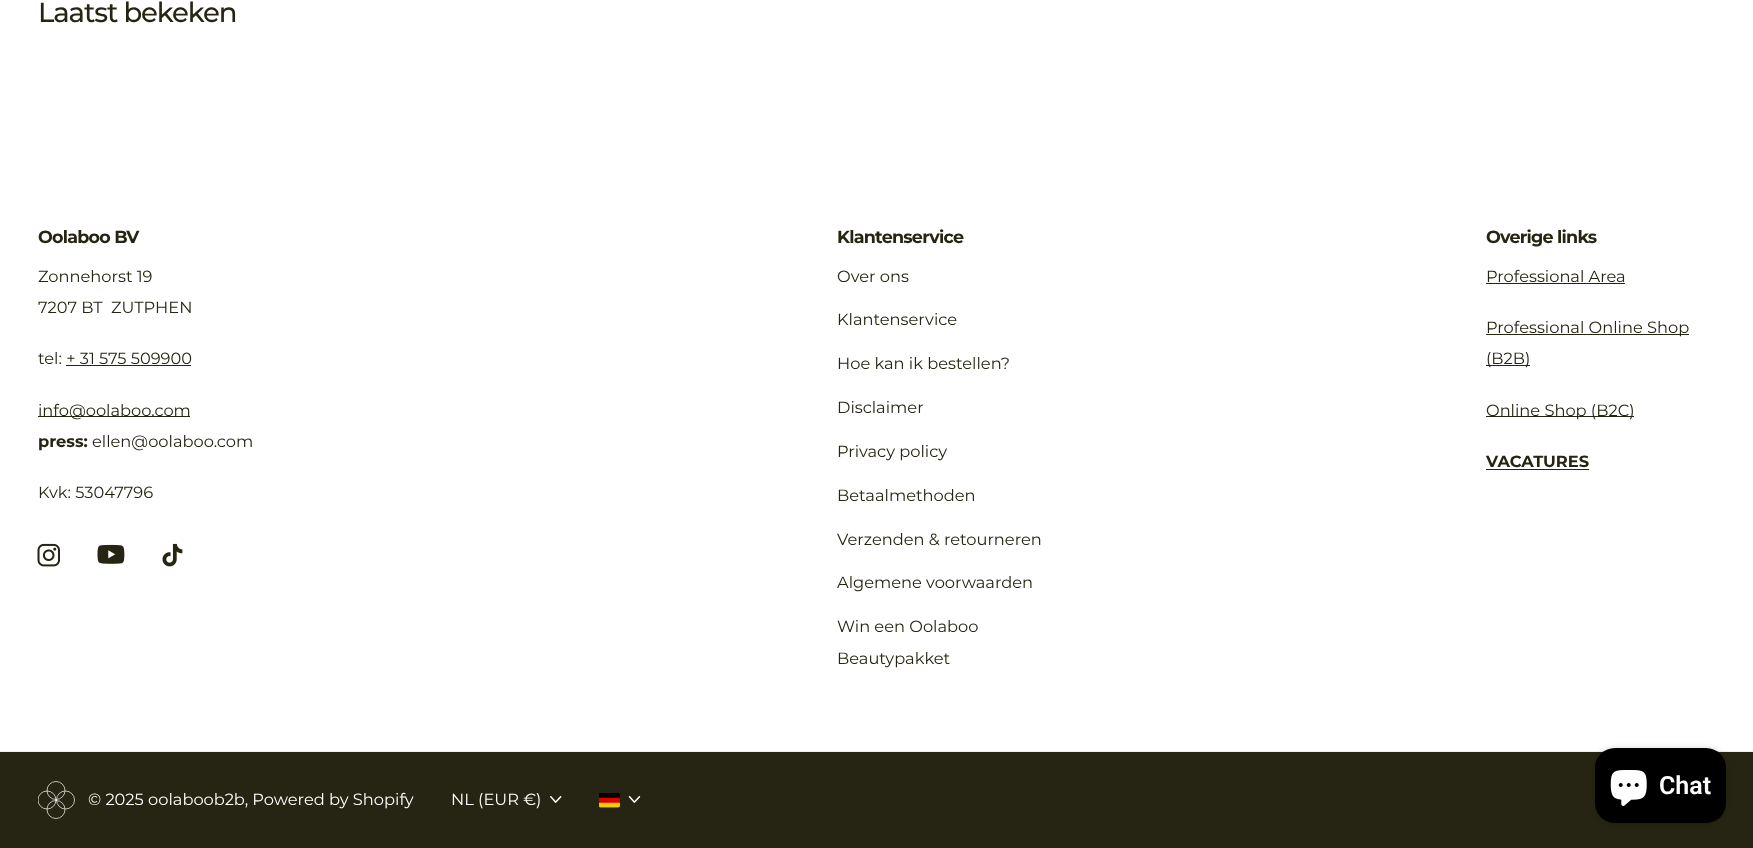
<?xml version="1.0" encoding="UTF-8"?>
<svg xmlns="http://www.w3.org/2000/svg" width="1753" height="848">
    <defs>
        <clipPath id="clip1"><rect x="38" y="781" width="37" height="38"/></clipPath>
        <filter id="blur1" x="-50%" y="-200%" width="200%" height="500%"><feGaussianBlur stdDeviation="3"/></filter>
    </defs>
    <rect width="100%" height="100%" fill="#FFFFFF"/>
    <text x="38" y="22" font-family="Montserrat" font-size="27.5" font-weight="500" letter-spacing="-1.1" fill="#262412">Laatst bekeken</text>
    <text x="38" y="243" font-family="Montserrat" font-size="17.5" font-weight="700" letter-spacing="-0.75" fill="#262412">Oolaboo BV</text>
    <text font-family="Montserrat" font-size="16.25" fill="#262412" xml:space="preserve"><tspan x="38" y="282">Zonnehorst 19</tspan><tspan x="38" y="313">7207 BT  ZUTPHEN</tspan></text>
    <text x="38" y="364" font-family="Montserrat" font-size="16.25" fill="#262412">tel: + 31 575 509900</text>
    <rect x="66" y="365" width="125" height="1" fill="#262412"/>
    <rect x="38" y="416" width="152" height="1" fill="#262412"/>
    <text x="38" y="416" font-family="Montserrat" font-size="16.25" fill="#262412">info@oolaboo.com</text>
    <text x="38" y="447" font-family="Montserrat" font-size="16.25" font-weight="700" fill="#262412">press:</text>
    <text x="92" y="447" font-family="Montserrat" font-size="16.25" fill="#262412">ellen@oolaboo.com</text>
    <text x="38" y="498" font-family="Montserrat" font-size="16.25" fill="#262412">Kvk: 53047796</text>
    <image x="37" y="543" width="23" height="24" href="img_01.png"/>
    <image x="97" y="544" width="28" height="20" href="img_02.png"/>
    <image x="162" y="543" width="21" height="24" href="img_03.png"/>
    <text x="837" y="243" font-family="Montserrat" font-size="17.5" font-weight="700" letter-spacing="-0.75" fill="#262412">Klantenservice</text>
    <text x="837" y="282" font-family="Montserrat" font-size="16.25" fill="#262412">Over ons</text>
    <text x="837" y="325" font-family="Montserrat" font-size="16.25" fill="#262412">Klantenservice</text>
    <text x="837" y="369" font-family="Montserrat" font-size="16.25" fill="#262412">Hoe kan ik bestellen?</text>
    <text x="837" y="413" font-family="Montserrat" font-size="16.25" fill="#262412">Disclaimer</text>
    <text x="837" y="457" font-family="Montserrat" font-size="16.25" fill="#262412">Privacy policy</text>
    <text x="837" y="501" font-family="Montserrat" font-size="16.25" fill="#262412">Betaalmethoden</text>
    <text x="837" y="545" font-family="Montserrat" font-size="16.25" fill="#262412">Verzenden &amp; retourneren</text>
    <text x="837" y="588" font-family="Montserrat" font-size="16.25" fill="#262412">Algemene voorwaarden</text>
    <text font-family="Montserrat" font-size="16.25" fill="#262412">
        <tspan x="837" y="632">Win een Oolaboo</tspan>
        <tspan x="837" y="664">Beautypakket</tspan>
    </text>
    <text x="1486" y="243" font-family="Montserrat" font-size="17.5" font-weight="700" letter-spacing="-0.75" fill="#262412">Overige links</text>
    <text x="1486" y="282" font-family="Montserrat" font-size="16.25" fill="#262412">Professional Area</text>
    <rect x="1486" y="283" width="139" height="1" fill="#262412"/>
    <rect x="1486" y="334" width="203" height="1" fill="#262412"/>
    <text x="1486" y="333" font-family="Montserrat" font-size="16.25" fill="#262412">Professional Online Shop</text>
    <rect x="1486" y="365" width="44" height="1" fill="#262412"/>
    <text x="1486" y="364" font-family="Montserrat" font-size="16.25" fill="#262412">(B2B)</text>
    <rect x="1486" y="416" width="148" height="1" fill="#262412"/>
    <text x="1486" y="416" font-family="Montserrat" font-size="16.25" fill="#262412">Online Shop (B2C)</text>
    <text x="1486" y="467" font-family="Montserrat" font-size="16.25" font-weight="700" fill="#262412">VACATURES</text>
    <rect x="1486" y="469" width="103" height="1" fill="#262412"/>
    <rect x="0" y="752" width="1753" height="96" fill="#262412"/>
    <rect x="0" y="751" width="1753" height="1" fill="#F3ECE6"/>
    <circle cx="56" cy="790.5" r="9" fill="none" stroke="#FFFFFF" stroke-width="0.7"/>
    <circle cx="56" cy="809.5" r="9" fill="none" stroke="#FFFFFF" stroke-width="0.7"/>
    <g clip-path="url(#clip1)">
        <circle cx="47" cy="800" r="9" fill="none" stroke="#FFFFFF" stroke-width="0.7"/>
    </g>
    <circle cx="65.5" cy="800" r="9" fill="none" stroke="#FFFFFF" stroke-width="0.7"/>
    <text x="88" y="805" font-family="Montserrat" font-size="16.25" fill="#FFFFFF">© 2025 oolaboob2b, Powered by Shopify</text>
    <text x="451" y="805" font-family="Montserrat" font-size="16.25" fill="#FFFFFF">NL (EUR €)</text>
    <image x="550" y="796" width="12" height="7" href="img_04.png"/>
    <image x="599" y="793" width="21" height="15" href="img_05.png"/>
    <image x="628" y="796" width="13" height="7" href="img_06.png"/>
    <rect x="1595" y="748" width="131" height="75" rx="20" fill="#000000" fill-opacity="0.15" filter="url(#blur1)"/>
    <rect x="1595" y="748" width="131" height="75" rx="20" fill="#000000"/>
    <image x="1610" y="770" width="37" height="36" href="img_07.png"/>
    <text x="1659" y="794" font-family="Roboto" font-size="25" font-weight="600" fill="#FFFFFF">Chat</text>
</svg>
